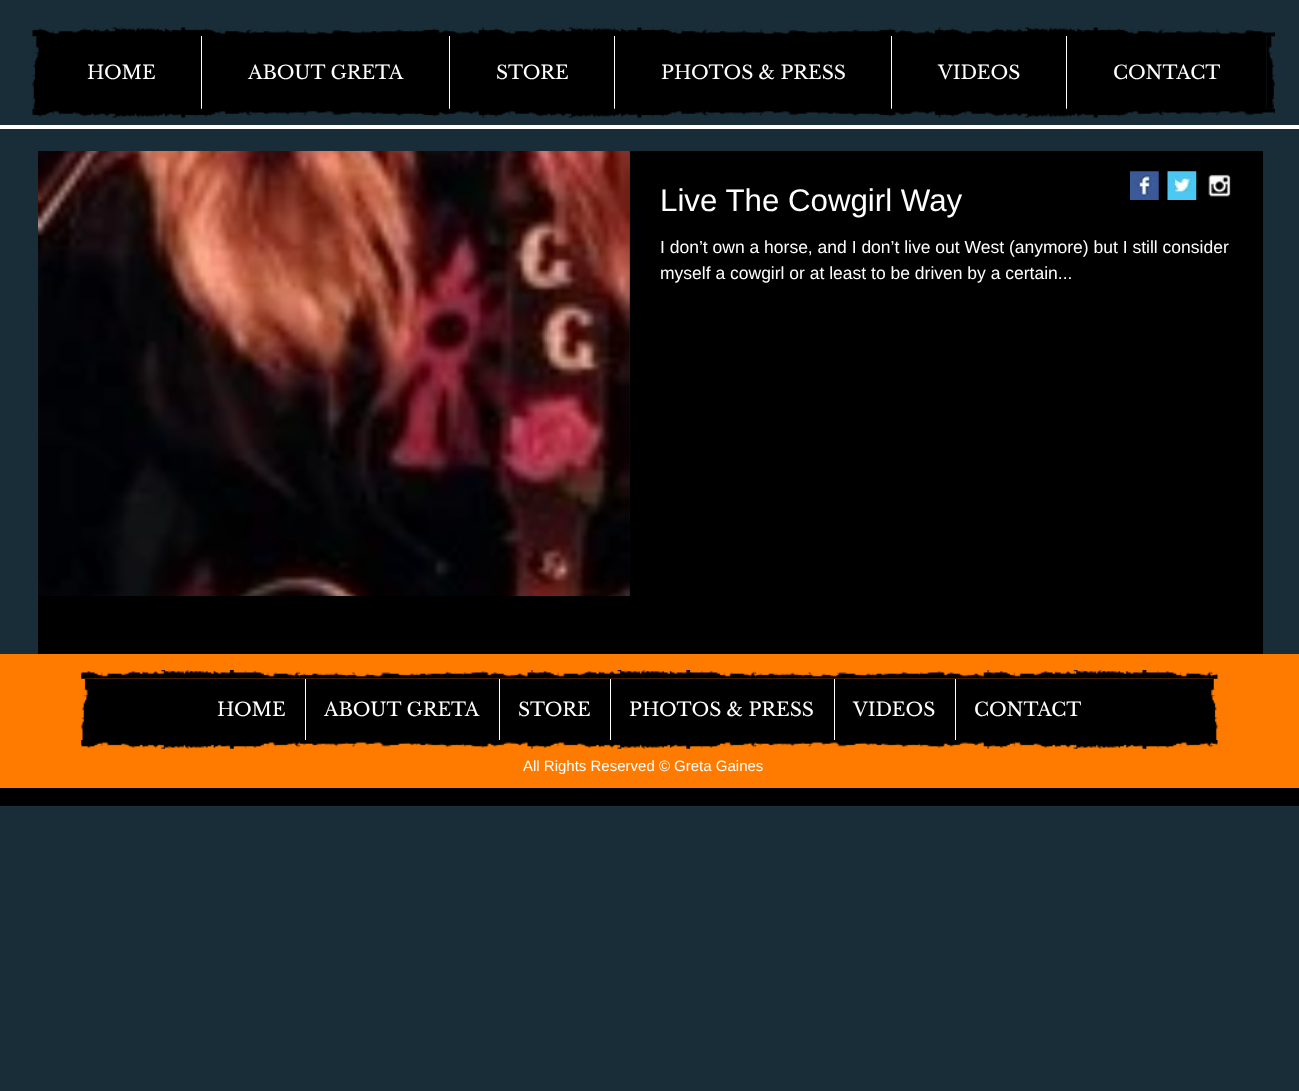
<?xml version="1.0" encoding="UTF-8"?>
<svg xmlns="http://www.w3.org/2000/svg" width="1299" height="1091">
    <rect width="100%" height="100%" fill="#192D39"/>
    <image x="32" y="27" width="1243" height="10" href="img_01.png"/>
    <image x="32" y="36" width="9" height="73" href="img_02.png"/>
    <rect x="41" y="36" width="1225" height="73" fill="#000000"/>
    <text x="87" y="79" font-family="Libre Baskerville" font-size="18.75" fill="#FFFFFF">HOME</text>
    <rect x="201" y="36" width="1" height="73" fill="#FFFFFF"/>
    <text x="248" y="79" font-family="Libre Baskerville" font-size="18.75" fill="#FFFFFF">ABOUT GRETA</text>
    <rect x="449" y="36" width="1" height="73" fill="#FFFFFF"/>
    <text x="496" y="79" font-family="Libre Baskerville" font-size="18.75" fill="#FFFFFF">STORE</text>
    <rect x="614" y="36" width="1" height="73" fill="#FFFFFF"/>
    <text x="661" y="79" font-family="Libre Baskerville" font-size="18.75" fill="#FFFFFF">PHOTOS &amp; PRESS</text>
    <rect x="891" y="36" width="1" height="73" fill="#FFFFFF"/>
    <text x="938" y="79" font-family="Libre Baskerville" font-size="18.75" fill="#FFFFFF">VIDEOS</text>
    <rect x="1066" y="36" width="1" height="73" fill="#FFFFFF"/>
    <text x="1113" y="79" font-family="Libre Baskerville" font-size="18.75" fill="#FFFFFF">CONTACT</text>
    <image x="1266" y="36" width="9" height="73" href="img_03.png"/>
    <image x="32" y="108" width="1243" height="10" href="img_04.png"/>
    <rect x="0" y="125" width="1299" height="4" fill="#FFFFFF"/>
    <rect x="38" y="151" width="1225" height="503" fill="#000000"/>
    <image x="1130" y="171" width="29" height="29" href="img_05.png"/>
    <image x="1167" y="171" width="30" height="29" href="img_06.png"/>
    <image x="1208" y="174" width="23" height="23" href="img_07.png"/>
    <image x="629" y="151" width="1" height="445" href="img_09.png"/>
    <image x="38" y="151" width="592" height="445" href="img_08.png"/>
    <text x="660" y="211" font-family="Liberation Sans" font-size="31.25" fill="#FFFFFF">Live The Cowgirl Way</text>
    <text font-family="Liberation Sans" font-size="17.5" fill="#FFFFFF">
        <tspan x="660" y="253">I don’t own a horse, and I don’t live out West (anymore) but I still consider</tspan>
        <tspan x="660" y="279">myself a cowgirl or at least to be driven by a certain...</tspan>
    </text>
    <rect x="0" y="788" width="1299" height="18" fill="#000000"/>
    <rect x="0" y="654" width="1299" height="134" fill="#FF7B00"/>
    <image x="81" y="670" width="1137" height="9" href="img_10.png"/>
    <image x="81" y="678" width="9" height="62" href="img_11.png"/>
    <rect x="90" y="679" width="1119" height="61" fill="#000000"/>
    <text x="217" y="716" font-family="Libre Baskerville" font-size="18.75" fill="#FFFFFF">HOME</text>
    <rect x="305" y="679" width="1" height="61" fill="#FFFFFF"/>
    <text x="324" y="716" font-family="Libre Baskerville" font-size="18.75" fill="#FFFFFF">ABOUT GRETA</text>
    <rect x="499" y="679" width="1" height="61" fill="#FFFFFF"/>
    <text x="518" y="716" font-family="Libre Baskerville" font-size="18.75" fill="#FFFFFF">STORE</text>
    <rect x="610" y="679" width="1" height="61" fill="#FFFFFF"/>
    <text x="629" y="716" font-family="Libre Baskerville" font-size="18.75" fill="#FFFFFF">PHOTOS &amp; PRESS</text>
    <rect x="834" y="679" width="1" height="61" fill="#FFFFFF"/>
    <text x="853" y="716" font-family="Libre Baskerville" font-size="18.75" fill="#FFFFFF">VIDEOS</text>
    <rect x="955" y="679" width="1" height="61" fill="#FFFFFF"/>
    <text x="974" y="716" font-family="Libre Baskerville" font-size="18.75" fill="#FFFFFF">CONTACT</text>
    <image x="1209" y="678" width="9" height="62" href="img_12.png"/>
    <image x="81" y="740" width="1137" height="9" href="img_13.png"/>
    <text x="523" y="771" font-family="Liberation Sans" font-size="15" fill="#FFFFFF">All Rights Reserved © Greta Gaines</text>
</svg>
